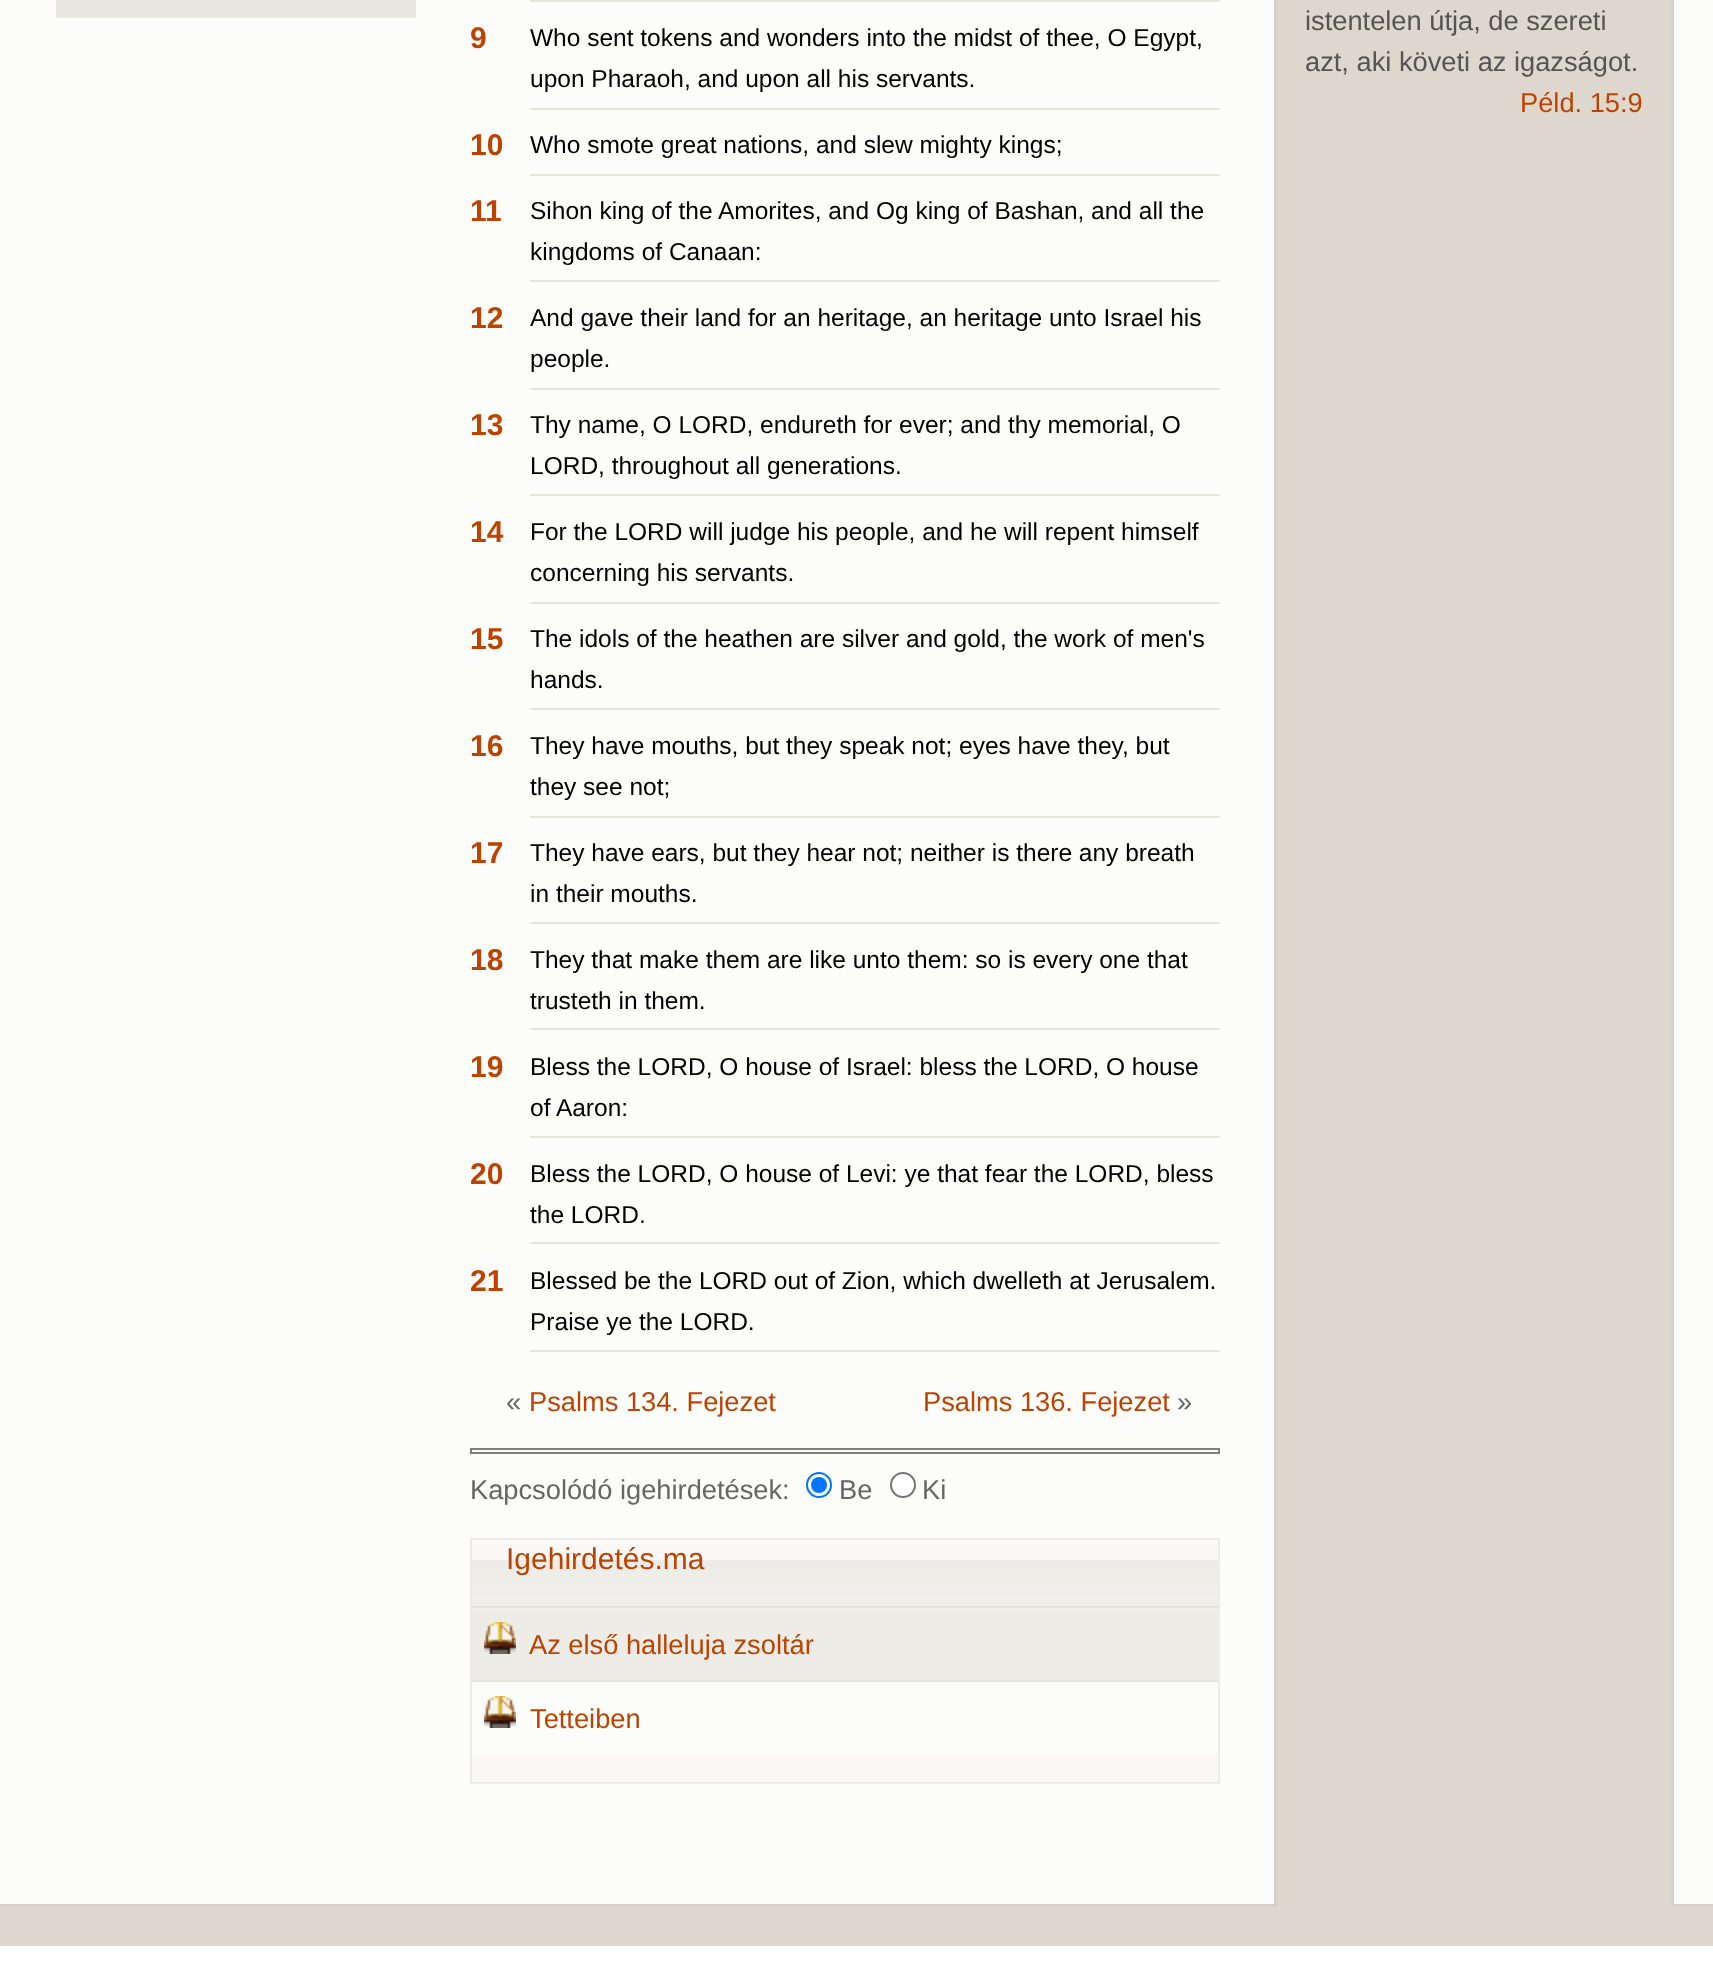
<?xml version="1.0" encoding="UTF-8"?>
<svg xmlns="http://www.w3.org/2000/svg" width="1713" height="1986">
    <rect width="100%" height="100%" fill="#FFFFFF"/>
    <rect x="0" y="0" width="1713" height="1904" fill="#FCFCFA"/>
    <image x="1274" y="0" width="400" height="1904" href="img_01.png"/>
    <rect x="0" y="1904" width="1713" height="2" fill="#D2CFC9"/>
    <image x="1277" y="1904" width="395" height="2" href="img_02.png"/>
    <rect x="56" y="0" width="360" height="18" fill="#EAE7E0"/>
    <rect x="530" y="0" width="690" height="2" fill="#E8E5DF"/>
    <text x="470" y="48" font-family="Liberation Sans" font-size="30" font-weight="700" fill="#BD4300">9</text>
    <rect x="530" y="108" width="690" height="2" fill="#E8E5DF"/>
    <text font-family="Liberation Sans" font-size="24.5" fill="#000000">
        <tspan x="530" y="46">Who sent tokens and wonders into the midst of thee, O Egypt,</tspan>
        <tspan x="530" y="87">upon Pharaoh, and upon all his servants.</tspan>
    </text>
    <text x="470" y="155" font-family="Liberation Sans" font-size="30" font-weight="700" fill="#BD4300">10</text>
    <rect x="530" y="174" width="690" height="2" fill="#E8E5DF"/>
    <text x="530" y="153" font-family="Liberation Sans" font-size="24.5" fill="#000000">Who smote great nations, and slew mighty kings;</text>
    <text x="470" y="221" font-family="Liberation Sans" font-size="30" font-weight="700" fill="#BD4300">11</text>
    <rect x="530" y="280" width="690" height="2" fill="#E8E5DF"/>
    <text font-family="Liberation Sans" font-size="24.5" fill="#000000">
        <tspan x="530" y="219">Sihon king of the Amorites, and Og king of Bashan, and all the</tspan>
        <tspan x="530" y="260">kingdoms of Canaan:</tspan>
    </text>
    <text x="470" y="328" font-family="Liberation Sans" font-size="30" font-weight="700" fill="#BD4300">12</text>
    <rect x="530" y="388" width="690" height="2" fill="#E8E5DF"/>
    <text font-family="Liberation Sans" font-size="24.5" fill="#000000">
        <tspan x="530" y="326">And gave their land for an heritage, an heritage unto Israel his</tspan>
        <tspan x="530" y="367">people.</tspan>
    </text>
    <text x="470" y="435" font-family="Liberation Sans" font-size="30" font-weight="700" fill="#BD4300">13</text>
    <rect x="530" y="494" width="690" height="2" fill="#E8E5DF"/>
    <text font-family="Liberation Sans" font-size="24.5" fill="#000000">
        <tspan x="530" y="433">Thy name, O LORD, endureth for ever; and thy memorial, O</tspan>
        <tspan x="530" y="474">LORD, throughout all generations.</tspan>
    </text>
    <text x="470" y="542" font-family="Liberation Sans" font-size="30" font-weight="700" fill="#BD4300">14</text>
    <rect x="530" y="602" width="690" height="2" fill="#E8E5DF"/>
    <text font-family="Liberation Sans" font-size="24.5" fill="#000000">
        <tspan x="530" y="540">For the LORD will judge his people, and he will repent himself</tspan>
        <tspan x="530" y="581">concerning his servants.</tspan>
    </text>
    <text x="470" y="649" font-family="Liberation Sans" font-size="30" font-weight="700" fill="#BD4300">15</text>
    <rect x="530" y="708" width="690" height="2" fill="#E8E5DF"/>
    <text font-family="Liberation Sans" font-size="24.5" fill="#000000">
        <tspan x="530" y="647">The idols of the heathen are silver and gold, the work of men's</tspan>
        <tspan x="530" y="688">hands.</tspan>
    </text>
    <text x="470" y="756" font-family="Liberation Sans" font-size="30" font-weight="700" fill="#BD4300">16</text>
    <rect x="530" y="816" width="690" height="2" fill="#E8E5DF"/>
    <text font-family="Liberation Sans" font-size="24.5" fill="#000000">
        <tspan x="530" y="754">They have mouths, but they speak not; eyes have they, but</tspan>
        <tspan x="530" y="795">they see not;</tspan>
    </text>
    <text x="470" y="863" font-family="Liberation Sans" font-size="30" font-weight="700" fill="#BD4300">17</text>
    <rect x="530" y="922" width="690" height="2" fill="#E8E5DF"/>
    <text font-family="Liberation Sans" font-size="24.5" fill="#000000">
        <tspan x="530" y="861">They have ears, but they hear not; neither is there any breath</tspan>
        <tspan x="530" y="902">in their mouths.</tspan>
    </text>
    <text x="470" y="970" font-family="Liberation Sans" font-size="30" font-weight="700" fill="#BD4300">18</text>
    <rect x="530" y="1028" width="690" height="2" fill="#E8E5DF"/>
    <text font-family="Liberation Sans" font-size="24.5" fill="#000000">
        <tspan x="530" y="968">They that make them are like unto them: so is every one that</tspan>
        <tspan x="530" y="1009">trusteth in them.</tspan>
    </text>
    <text x="470" y="1077" font-family="Liberation Sans" font-size="30" font-weight="700" fill="#BD4300">19</text>
    <rect x="530" y="1136" width="690" height="2" fill="#E8E5DF"/>
    <text font-family="Liberation Sans" font-size="24.5" fill="#000000">
        <tspan x="530" y="1075">Bless the LORD, O house of Israel: bless the LORD, O house</tspan>
        <tspan x="530" y="1116">of Aaron:</tspan>
    </text>
    <text x="470" y="1184" font-family="Liberation Sans" font-size="30" font-weight="700" fill="#BD4300">20</text>
    <rect x="530" y="1242" width="690" height="2" fill="#E8E5DF"/>
    <text font-family="Liberation Sans" font-size="24.5" fill="#000000">
        <tspan x="530" y="1182">Bless the LORD, O house of Levi: ye that fear the LORD, bless</tspan>
        <tspan x="530" y="1223">the LORD.</tspan>
    </text>
    <text x="470" y="1291" font-family="Liberation Sans" font-size="30" font-weight="700" fill="#BD4300">21</text>
    <rect x="530" y="1350" width="690" height="2" fill="#E8E5DF"/>
    <text font-family="Liberation Sans" font-size="24.5" fill="#000000">
        <tspan x="530" y="1289">Blessed be the LORD out of Zion, which dwelleth at Jerusalem.</tspan>
        <tspan x="530" y="1330">Praise ye the LORD.</tspan>
    </text>
    <text x="506" y="1411" font-family="Liberation Sans" font-size="27.25" fill="#666666">«</text>
    <text x="529" y="1411" font-family="Liberation Sans" font-size="27.25" fill="#BD4300">Psalms 134. Fejezet</text>
    <text x="923" y="1411" font-family="Liberation Sans" font-size="27.25" fill="#BD4300">Psalms 136. Fejezet</text>
    <text x="1177" y="1411" font-family="Liberation Sans" font-size="27.25" fill="#666666">»</text>
    <rect x="471" y="1449" width="748" height="4" fill="none" stroke="#808080" stroke-width="2"/>
    <text x="470" y="1499" font-family="Liberation Sans" font-size="27.25" fill="#666666">Kapcsolódó igehirdetések:</text>
    <circle cx="819" cy="1485" r="12" fill="#FFFFFF" stroke="#0075FF" stroke-width="2"/>
    <circle cx="819" cy="1485" r="8" fill="#0075FF"/>
    <text x="839" y="1499" font-family="Liberation Sans" font-size="27.25" fill="#666666">Be</text>
    <circle cx="903" cy="1485" r="12" fill="#FFFFFF" stroke="#767676" stroke-width="2"/>
    <text x="922" y="1499" font-family="Liberation Sans" font-size="27.25" fill="#666666">Ki</text>
    <rect x="472" y="1540" width="746" height="242" fill="#FAF9F7"/>
    <image x="472" y="1560" width="746" height="50" href="img_03.png"/>
    <rect x="471" y="1539" width="748" height="244" fill="none" stroke="#EEECE7" stroke-width="2"/>
    <text x="506" y="1569" font-family="Liberation Sans" font-size="30" fill="#BD4300">Igehirdetés.ma</text>
    <rect x="472" y="1610" width="746" height="70" fill="#EEECE7"/>
    <rect x="472" y="1606" width="746" height="2" fill="#E5E3DE"/>
    <rect x="472" y="1680" width="746" height="2" fill="#E5E3DE"/>
    <image x="484" y="1622" width="32" height="32" href="img_04.png"/>
    <text x="529" y="1654" font-family="Liberation Sans" font-size="27.25" fill="#BD4300">Az első halleluja zsoltár</text>
    <rect x="472" y="1682" width="746" height="72" fill="#FCFCFA"/>
    <image x="484" y="1696" width="32" height="32" href="img_05.png"/>
    <text x="530" y="1728" font-family="Liberation Sans" font-size="27.25" fill="#BD4300">Tetteiben</text>
    <text font-family="Liberation Sans" font-size="27.25" fill="#555555">
        <tspan x="1305" y="30">istentelen útja, de szereti</tspan>
        <tspan x="1305" y="71">azt, aki követi az igazságot.</tspan>
    </text>
    <text x="1520" y="112" font-family="Liberation Sans" font-size="27.25" fill="#BD4300">Péld. 15:9</text>
    <rect x="0" y="1906" width="1713" height="40" fill="#DDD7CD"/>
</svg>
